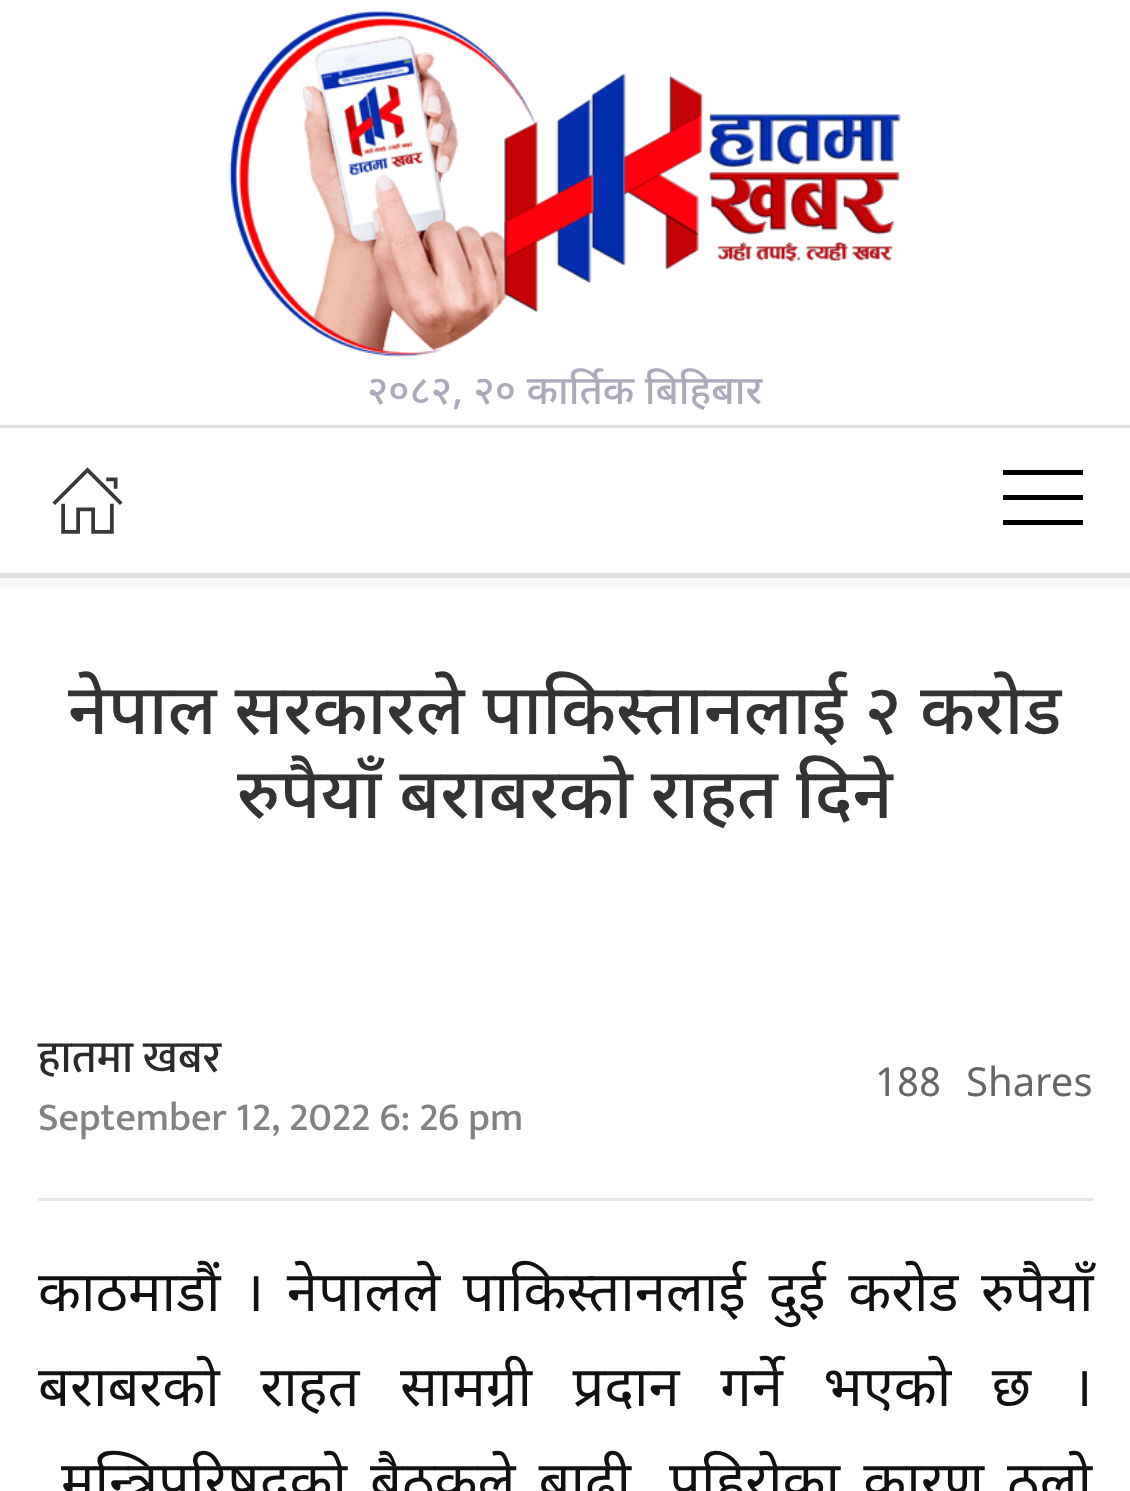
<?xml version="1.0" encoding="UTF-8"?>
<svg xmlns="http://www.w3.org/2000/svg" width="1130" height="1491">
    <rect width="100%" height="100%" fill="#FFFFFF"/>
    <image x="229" y="10" width="672" height="347" href="img_01.png"/>
    <text x="367" y="404" font-family="Noto Sans Devanagari" font-size="40" font-weight="500" fill="#ABAABA">२०८२, २० कार्तिक बिहिबार</text>
    <rect x="0" y="425" width="1130" height="3" fill="#DFDFDF"/>
    <rect x="0" y="573" width="1130" height="5" fill="#DFDFDF"/>
    <image x="52" y="467" width="71" height="67" href="img_02.png"/>
    <rect x="1003" y="470" width="80" height="5" fill="#000000"/>
    <rect x="1003" y="495" width="80" height="5" fill="#000000"/>
    <rect x="1003" y="520" width="80" height="5" fill="#000000"/>
    <rect x="0" y="578" width="1130" height="10" fill="#F8F8F8"/>
    <text x="68" y="734" font-family="Noto Sans Devanagari" font-size="70" font-weight="500" fill="#333333">नेपाल सरकारले पाकिस्तानलाई २ करोड</text>
    <text x="237" y="818" font-family="Noto Sans Devanagari" font-size="70" font-weight="500" fill="#333333">रुपैयाँ बराबरको राहत दिने</text>
    <text x="38" y="1072" font-family="Mukta" font-size="45" font-weight="500" fill="#2B2B2B">हातमा खबर</text>
    <text x="38" y="1130" font-family="Mukta" font-size="40" font-weight="500" fill="#818285">September 12, 2022 6: 26 pm</text>
    <text x="875" y="1096" font-family="Noto Sans Devanagari" font-size="40" fill="#666666">188</text>
    <text x="966" y="1096" font-family="Noto Sans Devanagari" font-size="40" fill="#666666">Shares</text>
    <rect x="38" y="1198" width="1055" height="3" fill="#E5E5E5"/>
    <text font-family="Noto Sans Devanagari" font-size="56" fill="#111111">
        <tspan x="38" y="1311" word-spacing="8">काठमाडौं । नेपालले पाकिस्तानलाई दुई करोड रुपैयाँ</tspan>
        <tspan x="38" y="1406" word-spacing="26">बराबरको राहत सामग्री प्रदान गर्ने भएको छ ।</tspan>
    </text>
    <text x="61" y="1501" word-spacing="8.5" font-family="Noto Sans Devanagari" font-size="56" fill="#111111">मन्त्रिपरिषद्को बैठकले बाढी, पहिरोका कारण ठूलो</text>
</svg>
